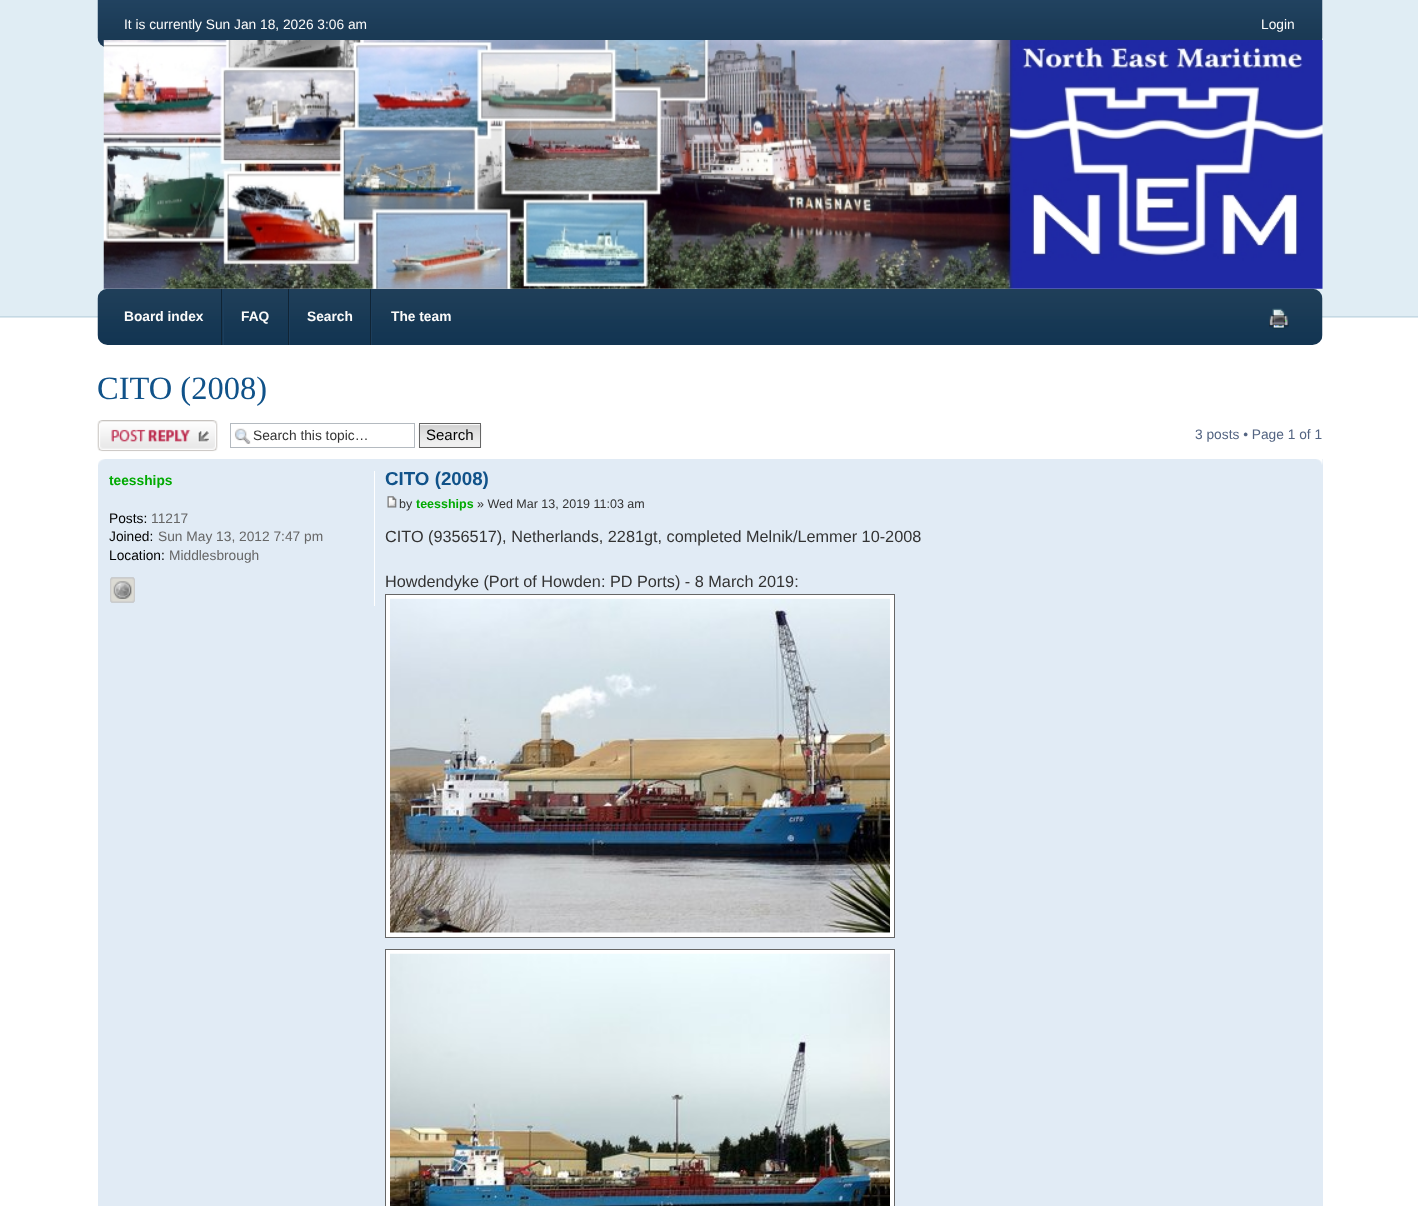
<?xml version="1.0" encoding="UTF-8"?>
<svg xmlns="http://www.w3.org/2000/svg" width="1418" height="1206">
    <rect width="100%" height="100%" fill="#FFFFFF"/>
    <image x="0" y="0" width="1418" height="318" href="img_01.png"/>
    <image x="97" y="0" width="1226" height="47" href="img_02.png"/>
    <text x="124" y="29" font-family="Liberation Sans" font-size="13.75" fill="#FBFBFB">It is currently Sun Jan 18, 2026 3:06 am</text>
    <text x="1261" y="29" font-family="Liberation Sans" font-size="13.75" fill="#FBFBFB">Login</text>
    <image x="103" y="40" width="1220" height="249" href="img_03.png"/>
    <image x="97" y="288" width="1226" height="57" href="img_04.png"/>
    <rect x="221" y="289" width="1" height="56" fill="#102435"/>
    <text x="124" y="321" font-family="Liberation Sans" font-size="13.75" font-weight="700" fill="#FBFBFB">Board index</text>
    <rect x="288" y="289" width="1" height="56" fill="#102435"/>
    <rect x="223" y="289" width="1" height="56" fill="#1C3E5C"/>
    <text x="241" y="321" font-family="Liberation Sans" font-size="13.75" font-weight="700" fill="#FBFBFB">FAQ</text>
    <rect x="370" y="289" width="1" height="56" fill="#102435"/>
    <rect x="289" y="289" width="1" height="56" fill="#1C3E5C"/>
    <text x="307" y="321" font-family="Liberation Sans" font-size="13.75" font-weight="700" fill="#FBFBFB">Search</text>
    <rect x="371" y="289" width="1" height="56" fill="#1C3E5C"/>
    <text x="391" y="321" font-family="Liberation Sans" font-size="13.75" font-weight="700" fill="#FBFBFB">The team</text>
    <image x="1269" y="308" width="20" height="21" href="img_05.png"/>
    <text x="97" y="399" font-family="Liberation Serif" font-size="32.5" fill="#105289">CITO (2008)</text>
    <image x="97" y="420" width="121" height="32" href="img_06.png"/>
    <image x="234" y="428" width="17" height="16" href="img_07.png"/>
    <rect x="230.5" y="423.5" width="184" height="24" fill="none" stroke="#B4BAC0"/>
    <text x="253" y="440" font-family="Liberation Sans" font-size="13.75" fill="#333333">Search this topic…</text>
    <rect x="420" y="424" width="60" height="1" fill="#FAFAFA"/>
    <image x="418" y="425" width="64" height="23" href="img_08.png"/>
    <rect x="419.5" y="423.5" width="61" height="24" fill="none" stroke="#666666"/>
    <text x="426" y="440" font-family="Liberation Sans" font-size="15" fill="#000000">Search</text>
    <text x="1195" y="439" font-family="Liberation Sans" font-size="13.75" fill="#536482">3 posts • Page 1 of 1</text>
    <rect x="98" y="459" width="1225" height="747" fill="#E1EBF5"/>
    <image x="98" y="459" width="7" height="6" href="img_09.png"/>
    <image x="1316" y="459" width="7" height="6" href="img_10.png"/>
    <rect x="374" y="471" width="1" height="135" fill="#FFFFFF"/>
    <text x="109" y="485" font-family="Liberation Sans" font-size="13.75" font-weight="700" fill="#00AA00">teesships</text>
    <text x="109" y="523" font-family="Liberation Sans" font-size="13.75" fill="#000000">Posts:</text>
    <text x="151" y="523" font-family="Liberation Sans" font-size="13.75" fill="#666666">11217</text>
    <text x="109" y="541" font-family="Liberation Sans" font-size="13.75" fill="#000000">Joined:</text>
    <text x="158" y="541" font-family="Liberation Sans" font-size="13.75" fill="#666666">Sun May 13, 2012 7:47 pm</text>
    <text x="109" y="560" font-family="Liberation Sans" font-size="13.75" fill="#000000">Location:</text>
    <text x="169" y="560" font-family="Liberation Sans" font-size="13.75" fill="#666666">Middlesbrough</text>
    <image x="110" y="577" width="25" height="26" href="img_11.png"/>
    <image x="110" y="577" width="25" height="26" href="img_12.png"/>
    <text x="385" y="485" font-family="Liberation Sans" font-size="18.75" font-weight="700" fill="#105289">CITO (2008)</text>
    <image x="387" y="496" width="10" height="12" href="img_13.png"/>
    <text x="399" y="508" font-family="Liberation Sans" font-size="12.5" fill="#333333">by</text>
    <text x="416" y="508" font-family="Liberation Sans" font-size="12.5" font-weight="700" fill="#00AA00">teesships</text>
    <text x="477" y="508" font-family="Liberation Sans" font-size="12.5" fill="#333333">» Wed Mar 13, 2019 11:03 am</text>
    <text x="385" y="542" font-family="Liberation Sans" font-size="16.25" fill="#333333">CITO (9356517), Netherlands, 2281gt, completed Melnik/Lemmer 10-2008</text>
    <text x="385" y="587" font-family="Liberation Sans" font-size="16.25" fill="#333333">Howdendyke (Port of Howden: PD Ports) - 8 March 2019:</text>
    <rect x="385.5" y="594.5" width="509" height="343" fill="#FFFFFF" stroke="#666666"/>
    <image x="390" y="598" width="500" height="335" href="img_14.png"/>
    <rect x="385.5" y="949.5" width="509" height="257" fill="#FFFFFF" stroke="#666666"/>
    <image x="390" y="953" width="500" height="253" href="img_15.png"/>
</svg>
